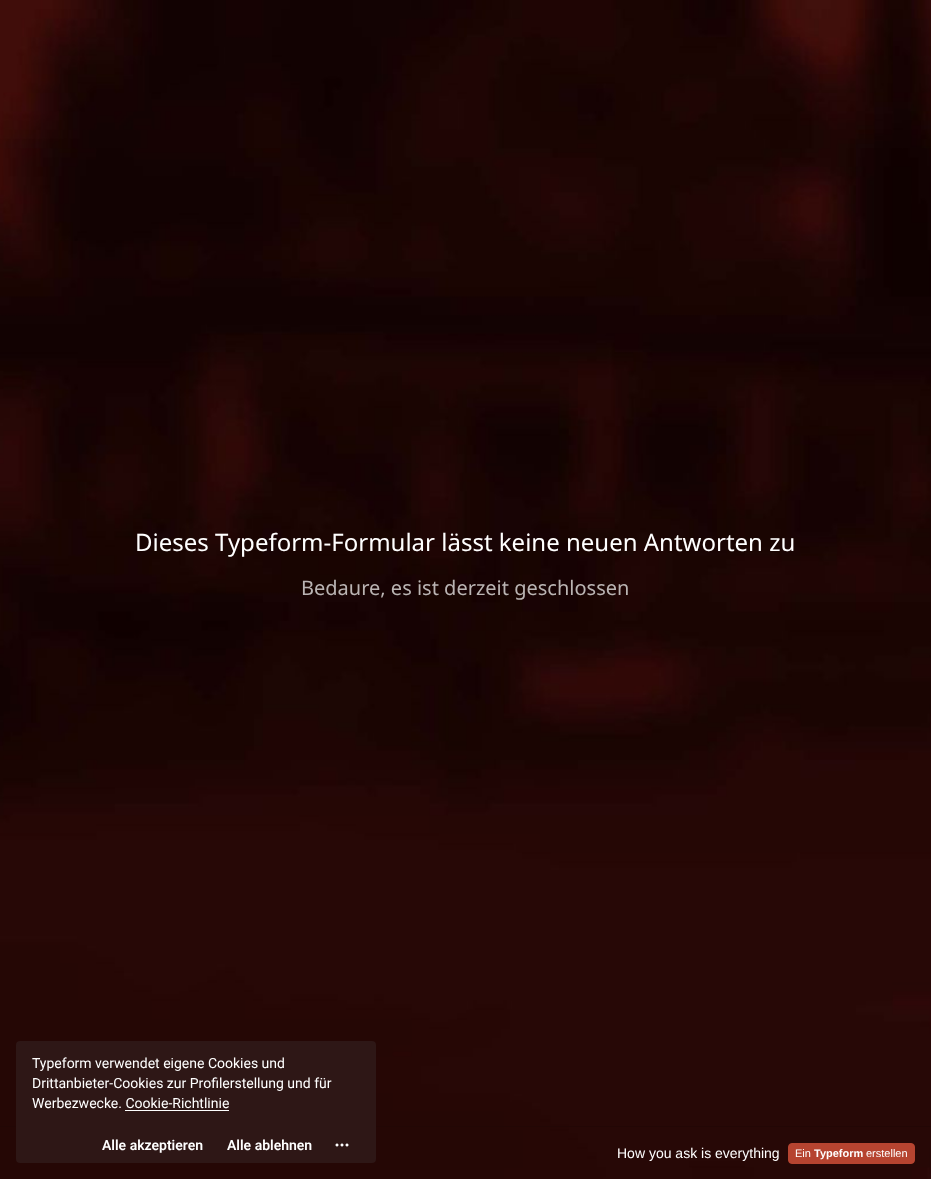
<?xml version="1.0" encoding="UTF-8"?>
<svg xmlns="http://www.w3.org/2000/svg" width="931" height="1179">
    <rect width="100%" height="100%" fill="#FFFFFF"/>
    <image x="0" y="0" width="931" height="1179" href="img_01.png"/>
    <text x="135" y="551" font-family="Noto Sans" font-size="24" fill="#FFFFFF">Dieses Typeform-Formular lässt keine neuen Antworten zu</text>
    <text x="301" y="595" font-family="Noto Sans" font-size="20" fill="#BAB4B3">Bedaure, es ist derzeit geschlossen</text>
    <rect x="0" y="1126" width="931" height="1" fill="#220705"/>
    <rect x="16" y="1041" width="360" height="122" rx="4" fill="#2E1716"/>
    <text font-family="Roboto" font-size="14" fill="#FFFFFF">
        <tspan x="32" y="1068">Typeform verwendet eigene Cookies und</tspan>
        <tspan x="32" y="1088">Drittanbieter-Cookies zur Profilerstellung und für</tspan>
        <tspan x="32" y="1108">Werbezwecke. Cookie-Richtlinie</tspan>
    </text>
    <rect x="125" y="1110" width="104" height="1" fill="#FFFFFF"/>
    <text x="102" y="1150" font-family="Roboto" font-size="14" font-weight="600" fill="#FFFFFF">Alle akzeptieren</text>
    <text x="227" y="1150" font-family="Roboto" font-size="14" font-weight="600" fill="#FFFFFF">Alle ablehnen</text>
    <image x="335" y="1143" width="14" height="4" href="img_02.png"/>
    <text x="617" y="1158" font-family="Liberation Sans" font-size="14" fill="#FFFFFF">How you ask is everything</text>
    <rect x="788.5" y="1143.5" width="126" height="20" rx="3.5" fill="#B64430" stroke="#B64430"/>
    <text x="795" y="1157" font-family="Liberation Sans" font-size="11" fill="#FFFFFF">Ein</text>
    <text x="814" y="1157" font-family="Liberation Sans" font-size="11" font-weight="700" fill="#FFFFFF">Typeform</text>
    <text x="866" y="1157" font-family="Liberation Sans" font-size="11" fill="#FFFFFF">erstellen</text>
</svg>
